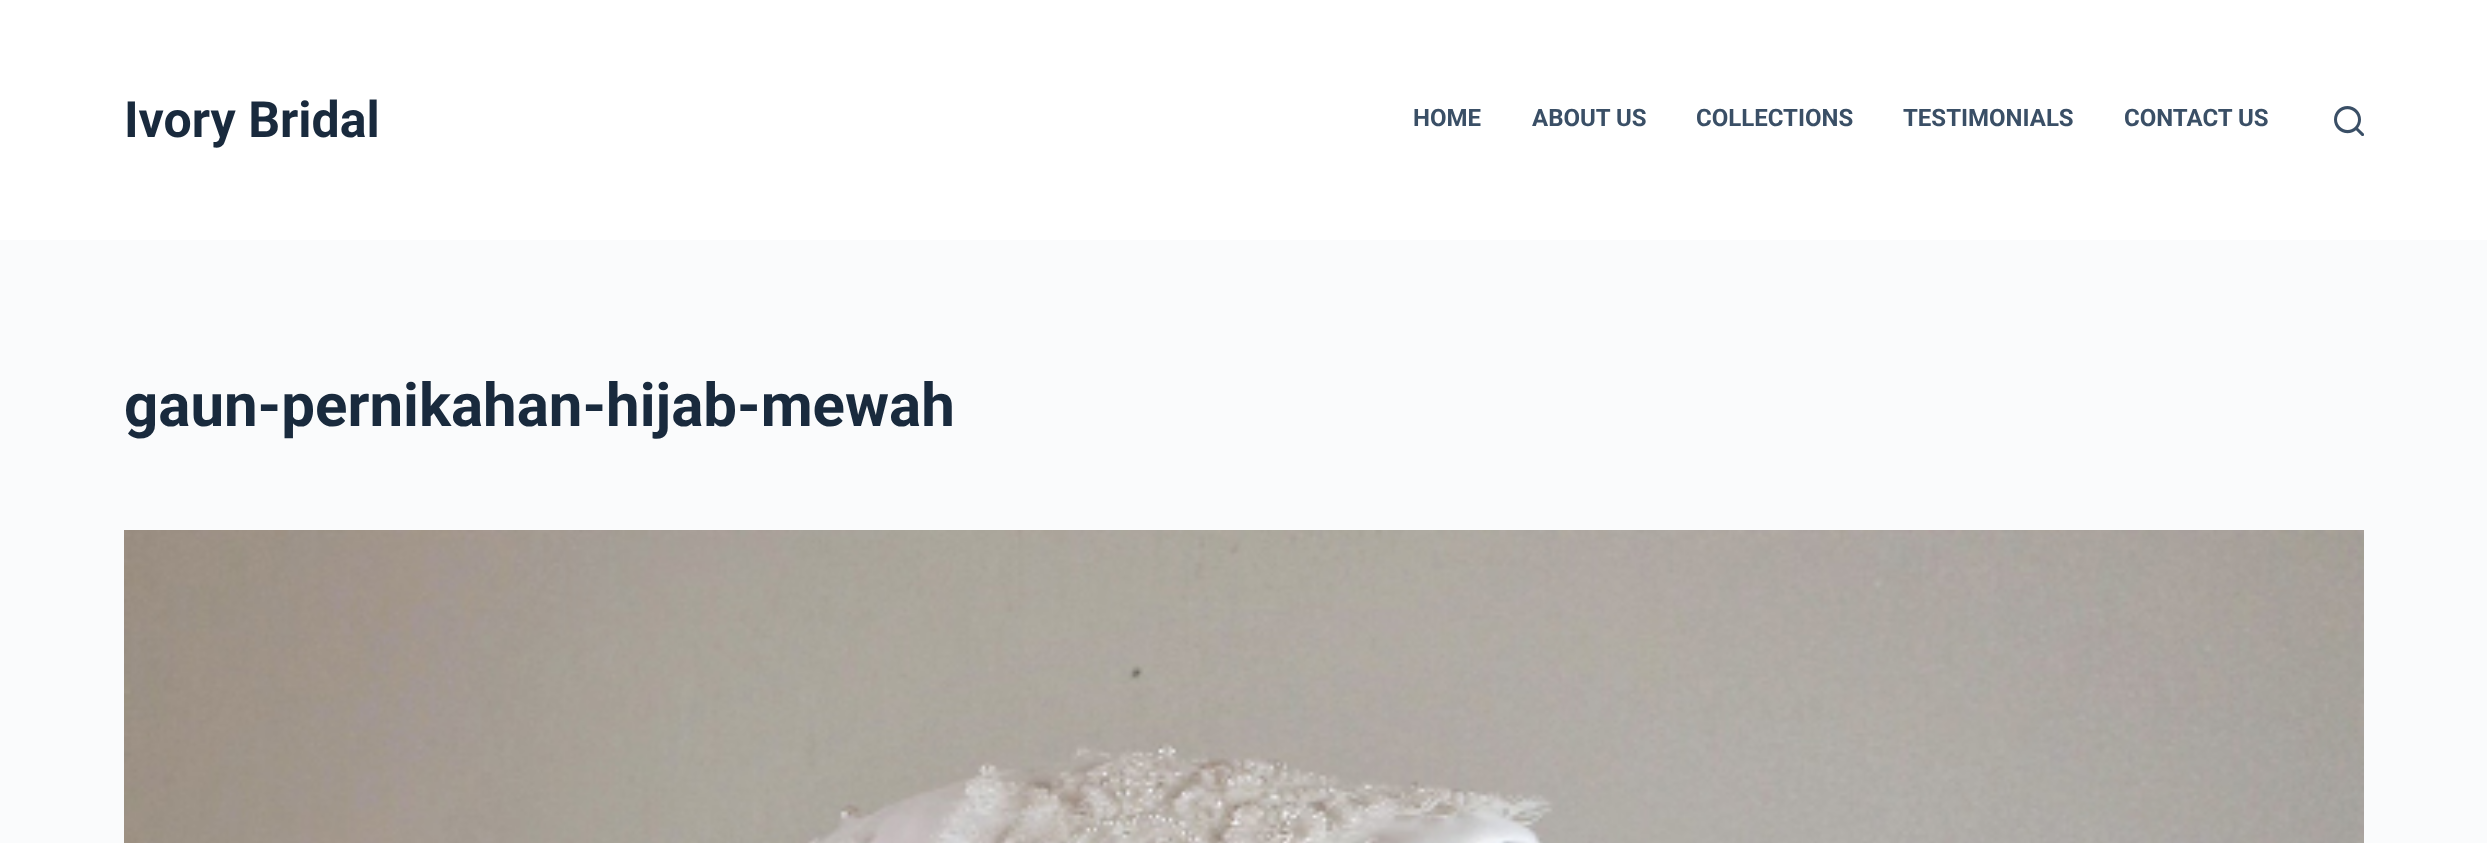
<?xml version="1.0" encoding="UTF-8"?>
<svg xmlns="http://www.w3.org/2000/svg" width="2487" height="843">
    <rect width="100%" height="100%" fill="#FAFBFC"/>
    <rect x="0" y="0" width="2487" height="240" fill="#FFFFFF"/>
    <text x="124" y="137" font-family="Roboto" font-size="50" font-weight="700" fill="#192A3D">Ivory Bridal</text>
    <text x="1413" y="126" font-family="Roboto" font-size="24" font-weight="700" fill="#3A4F66">HOME</text>
    <text x="1532" y="126" font-family="Roboto" font-size="24" font-weight="700" fill="#3A4F66">ABOUT US</text>
    <text x="1696" y="126" font-family="Roboto" font-size="24" font-weight="700" fill="#3A4F66">COLLECTIONS</text>
    <text x="1903" y="126" font-family="Roboto" font-size="24" font-weight="700" fill="#3A4F66">TESTIMONIALS</text>
    <text x="2124" y="126" font-family="Roboto" font-size="24" font-weight="700" fill="#3A4F66">CONTACT US</text>
    <image x="2334" y="106" width="30" height="30" href="img_01.png"/>
    <text x="124" y="426" font-family="Roboto" font-size="60" font-weight="700" fill="#192A3D">gaun-pernikahan-hijab-mewah</text>
    <image x="124" y="530" width="2240" height="313" href="img_02.png"/>
</svg>
